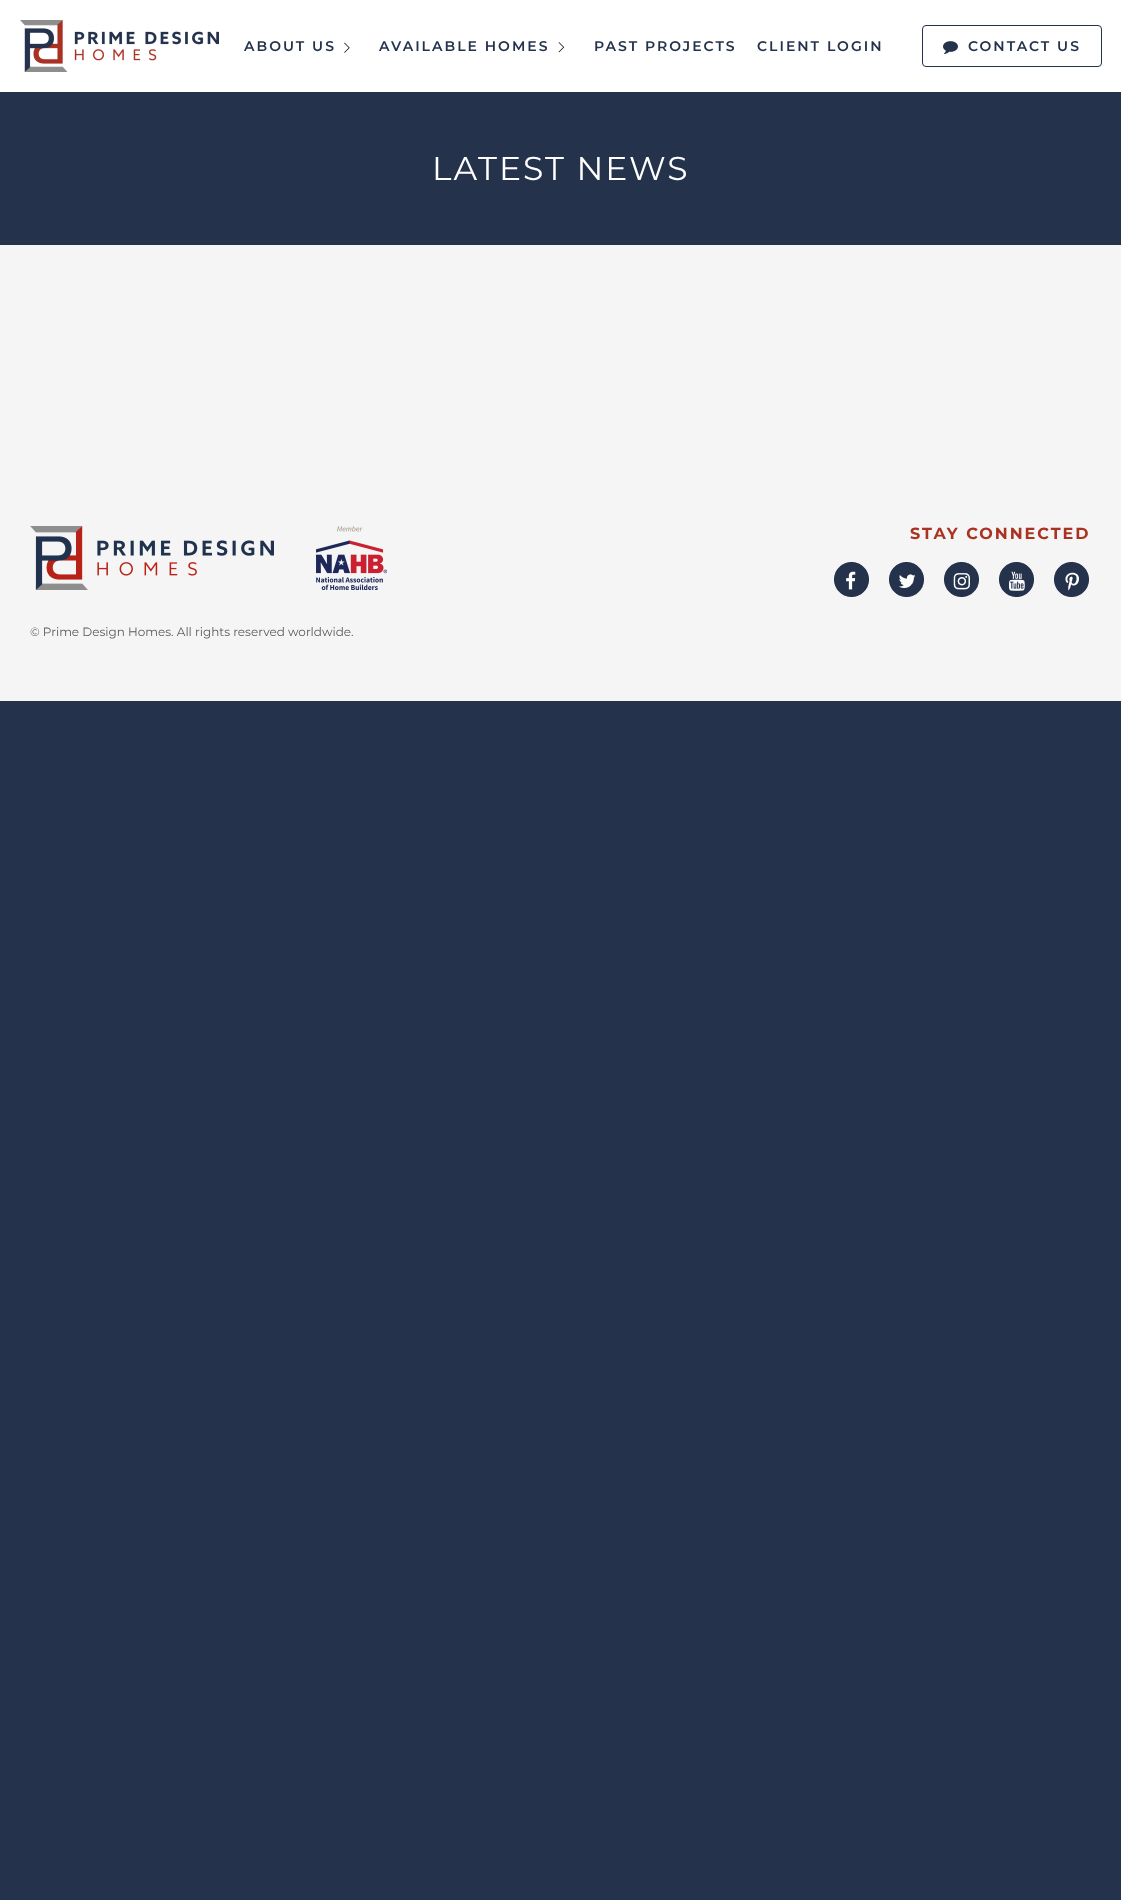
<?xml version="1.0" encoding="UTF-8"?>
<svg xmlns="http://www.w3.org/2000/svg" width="1121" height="1900">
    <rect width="100%" height="100%" fill="#24324C"/>
    <rect x="0" y="0" width="1121" height="92" fill="#FFFFFF"/>
    <image x="20" y="20" width="199" height="52" href="img_01.png"/>
    <text x="244" y="51" font-family="Montserrat" font-size="14" font-weight="600" letter-spacing="2" fill="#24324C">ABOUT US</text>
    <image x="344" y="42" width="6" height="11" href="img_02.png"/>
    <text x="379" y="51" font-family="Montserrat" font-size="14" font-weight="600" letter-spacing="2" fill="#24324C">AVAILABLE HOMES</text>
    <image x="558" y="42" width="7" height="11" href="img_03.png"/>
    <text x="594" y="51" font-family="Montserrat" font-size="14" font-weight="600" letter-spacing="2" fill="#24324C">PAST PROJECTS</text>
    <text x="757" y="51" font-family="Montserrat" font-size="14" font-weight="600" letter-spacing="2" fill="#24324C">CLIENT LOGIN</text>
    <rect x="922.5" y="25.5" width="179" height="41" rx="3.5" fill="none" stroke="#24324C"/>
    <image x="943" y="41" width="15" height="13" href="img_04.png"/>
    <text x="968" y="51" font-family="Montserrat" font-size="14" font-weight="600" letter-spacing="2" fill="#24324C">CONTACT US</text>
    <text x="432" y="180" font-family="Montserrat" font-size="33" letter-spacing="2" fill="#FFFFFF">LATEST NEWS</text>
    <rect x="0" y="245" width="1121" height="456" fill="#F5F5F5"/>
    <text x="910" y="539" font-family="Montserrat" font-size="16" font-weight="700" letter-spacing="2" fill="#AA3221">STAY CONNECTED</text>
    <image x="834" y="562" width="35" height="35" href="img_05.png"/>
    <image x="889" y="562" width="35" height="35" href="img_06.png"/>
    <image x="944" y="562" width="35" height="35" href="img_07.png"/>
    <image x="999" y="562" width="35" height="35" href="img_08.png"/>
    <image x="1054" y="562" width="35" height="35" href="img_09.png"/>
    <image x="30" y="526" width="357" height="64" href="img_10.png"/>
    <text x="30" y="636" font-family="Montserrat" font-size="12" fill="#5B5B5B">© Prime Design Homes. All rights reserved worldwide.</text>
</svg>
